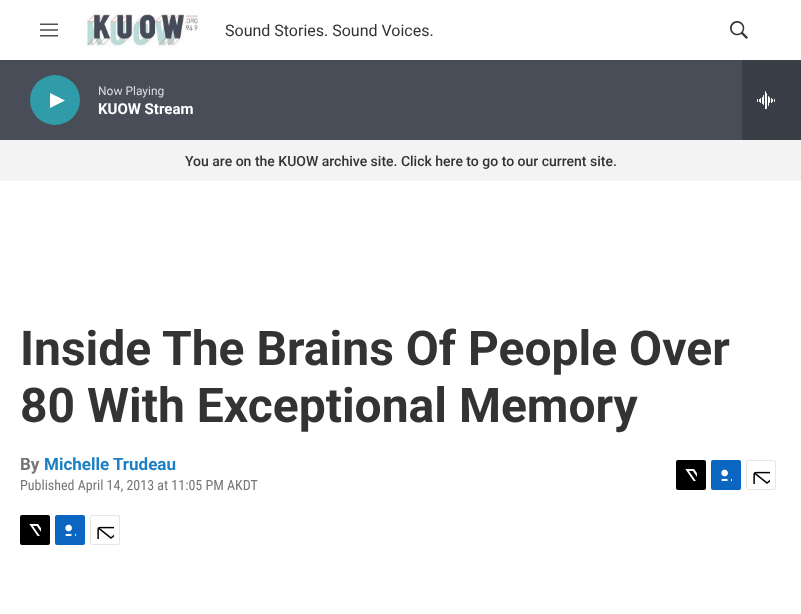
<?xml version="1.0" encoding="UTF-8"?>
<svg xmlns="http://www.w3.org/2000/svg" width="801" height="614">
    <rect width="100%" height="100%" fill="#FFFFFF"/>
    <rect x="0" y="140" width="801" height="1" fill="#F5F5F5"/>
    <image x="40" y="23" width="18" height="14" href="img_01.png"/>
    <image x="83" y="10" width="117" height="38" href="img_02.png"/>
    <text x="225" y="36" font-family="Roboto" font-size="16" fill="#333333">Sound Stories. Sound Voices.</text>
    <image x="730" y="21" width="18" height="18" href="img_03.png"/>
    <rect x="0" y="60" width="742" height="80" fill="#494D58"/>
    <circle cx="55" cy="100" r="25" fill="#309CA9"/>
    <path d="M 50 93 L 65 100.5 L 50 108 Z" fill="#FFFFFF"/>
    <text x="98" y="95" font-family="Roboto" font-size="12" fill="#DBDBDE">Now Playing</text>
    <text x="98" y="114" font-family="'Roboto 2'" font-size="15" font-weight="700" fill="#FFFFFF">KUOW Stream</text>
    <rect x="742" y="60" width="59" height="80" fill="#3A3E46"/>
    <image x="757" y="91" width="18" height="18" href="img_04.png"/>
    <rect x="0" y="141" width="801" height="40" fill="#F3F3F3"/>
    <text x="185" y="166" font-family="Roboto" font-size="14" font-weight="500" fill="#333333">You are on the KUOW archive site. Click here to go to our current site.</text>
    <text font-family="Roboto" font-size="48" font-weight="700" fill="#333333">
        <tspan x="20" y="365">Inside The Brains Of People Over</tspan>
        <tspan x="20" y="422">80 With Exceptional Memory</tspan>
    </text>
    <text x="20" y="470" font-family="Roboto" font-size="17" font-weight="700" fill="#767676">By</text>
    <text x="44" y="470" font-family="Roboto" font-size="17" font-weight="700" fill="#1A7FC3">Michelle Trudeau</text>
    <text x="20" y="490" font-family="Roboto Condensed" font-size="14" fill="#767676">Published April 14, 2013 at 11:05 PM AKDT</text>
    <rect x="676" y="460" width="30" height="30" rx="2" fill="#000000"/>
    <image x="685" y="469" width="12" height="12" href="img_05.png"/>
    <rect x="711" y="460" width="30" height="30" rx="2" fill="#0A66C1"/>
    <image x="721" y="469" width="11" height="12" href="img_06.png"/>
    <rect x="746.5" y="460.5" width="29" height="29" rx="1.5" fill="none" stroke="#E6E6E6"/>
    <image x="753" y="471" width="17" height="13" href="img_07.png"/>
    <rect x="20" y="515" width="30" height="30" rx="2" fill="#000000"/>
    <image x="29" y="524" width="12" height="12" href="img_05.png"/>
    <rect x="55" y="515" width="30" height="30" rx="2" fill="#0A66C1"/>
    <image x="65" y="524" width="11" height="12" href="img_06.png"/>
    <rect x="90.5" y="515.5" width="29" height="29" rx="1.5" fill="none" stroke="#E6E6E6"/>
    <image x="97" y="526" width="17" height="13" href="img_07.png"/>
</svg>
